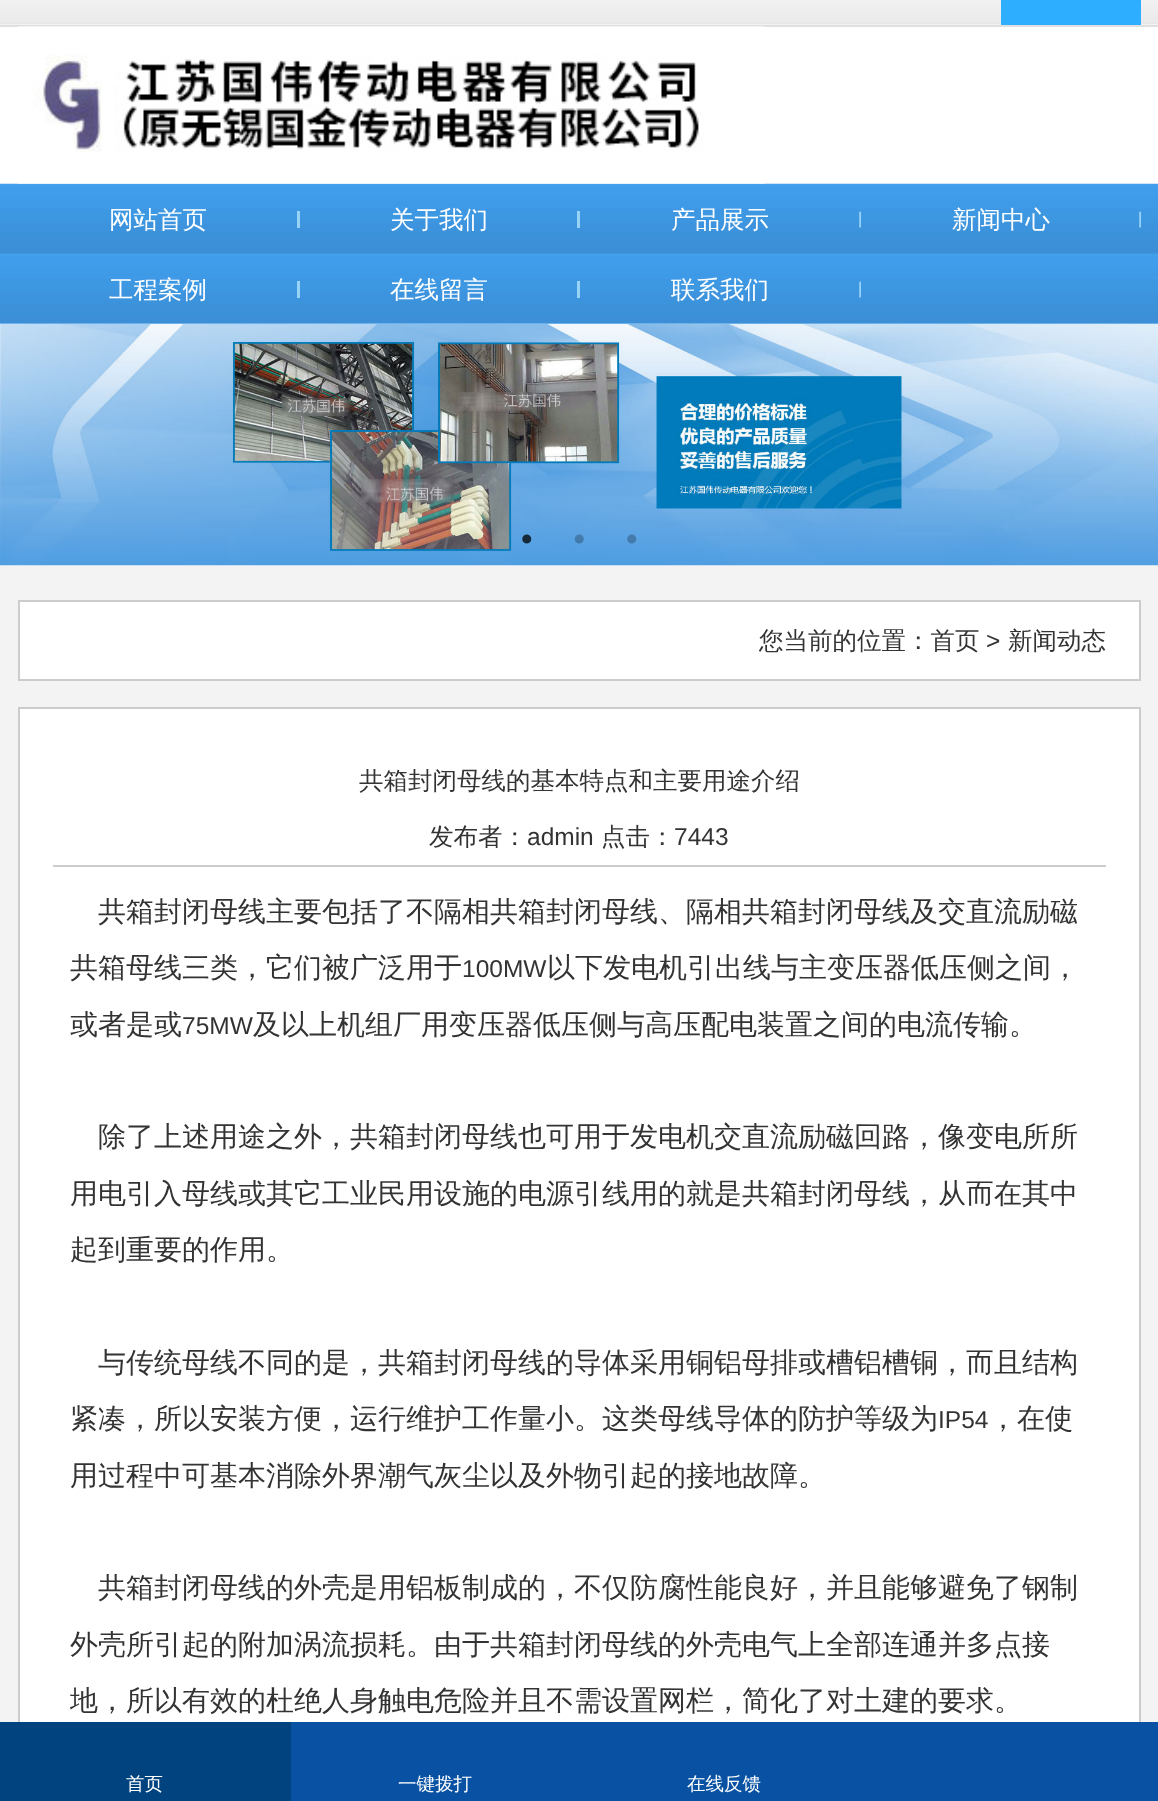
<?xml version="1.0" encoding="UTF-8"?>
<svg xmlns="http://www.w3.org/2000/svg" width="1158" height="1801">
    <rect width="100%" height="100%" fill="#FFFFFF"/>
    <image x="0" y="0" width="1158" height="25" href="img_01.png"/>
    <rect x="0" y="25" width="1158" height="2" fill="#DFDFDF"/>
    <rect x="1001" y="0" width="140" height="25" fill="#2EAEFF"/>
    <image x="0" y="183" width="1158" height="141" href="img_03.png"/>
    <image x="17" y="26" width="748" height="158" href="img_02.png"/>
    <rect x="297" y="211" width="3" height="17" fill="#97D3F7"/>
    <text x="109" y="228" font-family="WenQuanYi Zen Hei" font-size="24.5" font-weight="500" fill="#FFFFFF">网站首页</text>
    <rect x="577" y="211" width="3" height="17" fill="#97D3F7"/>
    <text x="390" y="228" font-family="WenQuanYi Zen Hei" font-size="24.5" font-weight="500" fill="#FFFFFF">关于我们</text>
    <image x="859" y="211" width="2" height="17" href="img_04.png"/>
    <text x="671" y="228" font-family="WenQuanYi Zen Hei" font-size="24.5" font-weight="500" fill="#FFFFFF">产品展示</text>
    <image x="1139" y="211" width="2" height="17" href="img_04.png"/>
    <text x="952" y="228" font-family="WenQuanYi Zen Hei" font-size="24.5" font-weight="500" fill="#FFFFFF">新闻中心</text>
    <rect x="297" y="281" width="3" height="17" fill="#97D3F7"/>
    <text x="109" y="298" font-family="WenQuanYi Zen Hei" font-size="24.5" font-weight="500" fill="#FFFFFF">工程案例</text>
    <rect x="577" y="281" width="3" height="17" fill="#97D3F7"/>
    <text x="390" y="298" font-family="WenQuanYi Zen Hei" font-size="24.5" font-weight="500" fill="#FFFFFF">在线留言</text>
    <image x="859" y="281" width="2" height="17" href="img_04.png"/>
    <text x="671" y="298" font-family="WenQuanYi Zen Hei" font-size="24.5" font-weight="500" fill="#FFFFFF">联系我们</text>
    <rect x="0" y="565" width="1158" height="1157" fill="#F3F3F3"/>
    <image x="0" y="324" width="1158" height="242" href="img_05.png"/>
    <image x="522" y="534" width="10" height="10" href="img_06.png"/>
    <image x="574" y="534" width="10" height="10" href="img_07.png"/>
    <image x="627" y="534" width="10" height="10" href="img_08.png"/>
    <rect x="19" y="601" width="1121" height="79" fill="#FFFFFF" stroke="#CCCCCC" stroke-width="2"/>
    <text x="759" y="649" font-family="WenQuanYi Zen Hei" font-size="24.5" font-weight="500" fill="#333333">您当前的位置：首页</text>
    <text x="986" y="649" font-family="Liberation Sans" font-size="24.5" fill="#333333">&gt;</text>
    <text x="1008" y="649" font-family="WenQuanYi Zen Hei" font-size="24.5" font-weight="500" fill="#333333">新闻动态</text>
    <rect x="20" y="709" width="1119" height="1013" fill="#FFFFFF"/>
    <rect x="19" y="708" width="1121" height="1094" fill="none" stroke="#CCCCCC" stroke-width="2"/>
    <text x="359" y="789" font-family="WenQuanYi Zen Hei" font-size="24.5" font-weight="500" fill="#333333">共箱封闭母线的基本特点和主要用途介绍</text>
    <rect x="53" y="865" width="1053" height="2" fill="#CCCCCC"/>
    <text x="429" y="845" font-family="WenQuanYi Zen Hei" font-size="24.5" font-weight="500" fill="#333333">发布者：</text>
    <text x="527" y="845" font-family="Liberation Sans" font-size="24.5" fill="#333333">admin</text>
    <text x="601" y="845" font-family="WenQuanYi Zen Hei" font-size="24.5" font-weight="500" fill="#333333">点击：</text>
    <text x="674" y="845" font-family="Liberation Sans" font-size="24.5" fill="#333333">7443</text>
    <text x="98" y="921" font-family="WenQuanYi Zen Hei" font-size="28" font-weight="500" fill="#333333">共箱封闭母线主要包括了不隔相共箱封闭母线、隔相共箱封闭母线及交直流励磁</text>
    <text x="70" y="977" font-family="WenQuanYi Zen Hei" font-size="28" font-weight="500" fill="#333333">共箱母线三类，它们被广泛用于</text>
    <text x="462" y="977" font-family="Liberation Sans" font-size="24.5" fill="#333333">100MW</text>
    <text x="547" y="977" font-family="WenQuanYi Zen Hei" font-size="28" font-weight="500" fill="#333333">以下发电机引出线与主变压器低压侧之间，</text>
    <text x="70" y="1034" font-family="WenQuanYi Zen Hei" font-size="28" font-weight="500" fill="#333333">或者是或</text>
    <text x="182" y="1034" font-family="Liberation Sans" font-size="24.5" fill="#333333">75MW</text>
    <text x="253" y="1034" font-family="WenQuanYi Zen Hei" font-size="28" font-weight="500" fill="#333333">及以上机组厂用变压器低压侧与高压配电装置之间的电流传输。</text>
    <text x="98" y="1146" font-family="WenQuanYi Zen Hei" font-size="28" font-weight="500" fill="#333333">除了上述用途之外，共箱封闭母线也可用于发电机交直流励磁回路，像变电所所</text>
    <text x="70" y="1203" font-family="WenQuanYi Zen Hei" font-size="28" font-weight="500" fill="#333333">用电引入母线或其它工业民用设施的电源引线用的就是共箱封闭母线，从而在其中</text>
    <text x="70" y="1259" font-family="WenQuanYi Zen Hei" font-size="28" font-weight="500" fill="#333333">起到重要的作用。</text>
    <text x="98" y="1372" font-family="WenQuanYi Zen Hei" font-size="28" font-weight="500" fill="#333333">与传统母线不同的是，共箱封闭母线的导体采用铜铝母排或槽铝槽铜，而且结构</text>
    <text x="70" y="1428" font-family="WenQuanYi Zen Hei" font-size="28" font-weight="500" fill="#333333">紧凑，所以安装方便，运行维护工作量小。这类母线导体的防护等级为</text>
    <text x="938" y="1428" font-family="Liberation Sans" font-size="24.5" fill="#333333">IP54</text>
    <text x="989" y="1428" font-family="WenQuanYi Zen Hei" font-size="28" font-weight="500" fill="#333333">，在使</text>
    <text x="70" y="1485" font-family="WenQuanYi Zen Hei" font-size="28" font-weight="500" fill="#333333">用过程中可基本消除外界潮气灰尘以及外物引起的接地故障。</text>
    <text x="98" y="1597" font-family="WenQuanYi Zen Hei" font-size="28" font-weight="500" fill="#333333">共箱封闭母线的外壳是用铝板制成的，不仅防腐性能良好，并且能够避免了钢制</text>
    <text x="70" y="1654" font-family="WenQuanYi Zen Hei" font-size="28" font-weight="500" fill="#333333">外壳所引起的附加涡流损耗。由于共箱封闭母线的外壳电气上全部连通并多点接</text>
    <text x="70" y="1710" font-family="WenQuanYi Zen Hei" font-size="28" font-weight="500" fill="#333333">地，所以有效的杜绝人身触电危险并且不需设置网栏，简化了对土建的要求。</text>
    <rect x="291" y="1722" width="867" height="79" fill="#0952A3"/>
    <rect x="0" y="1722" width="291" height="79" fill="#00437F"/>
    <text x="126" y="1790" font-family="WenQuanYi Zen Hei" font-size="18.5" font-weight="500" fill="#FFFFFF">首页</text>
    <text x="398" y="1790" font-family="WenQuanYi Zen Hei" font-size="18.5" font-weight="500" fill="#FFFFFF">一键拨打</text>
    <text x="687" y="1790" font-family="WenQuanYi Zen Hei" font-size="18.5" font-weight="500" fill="#FFFFFF">在线反馈</text>
</svg>
